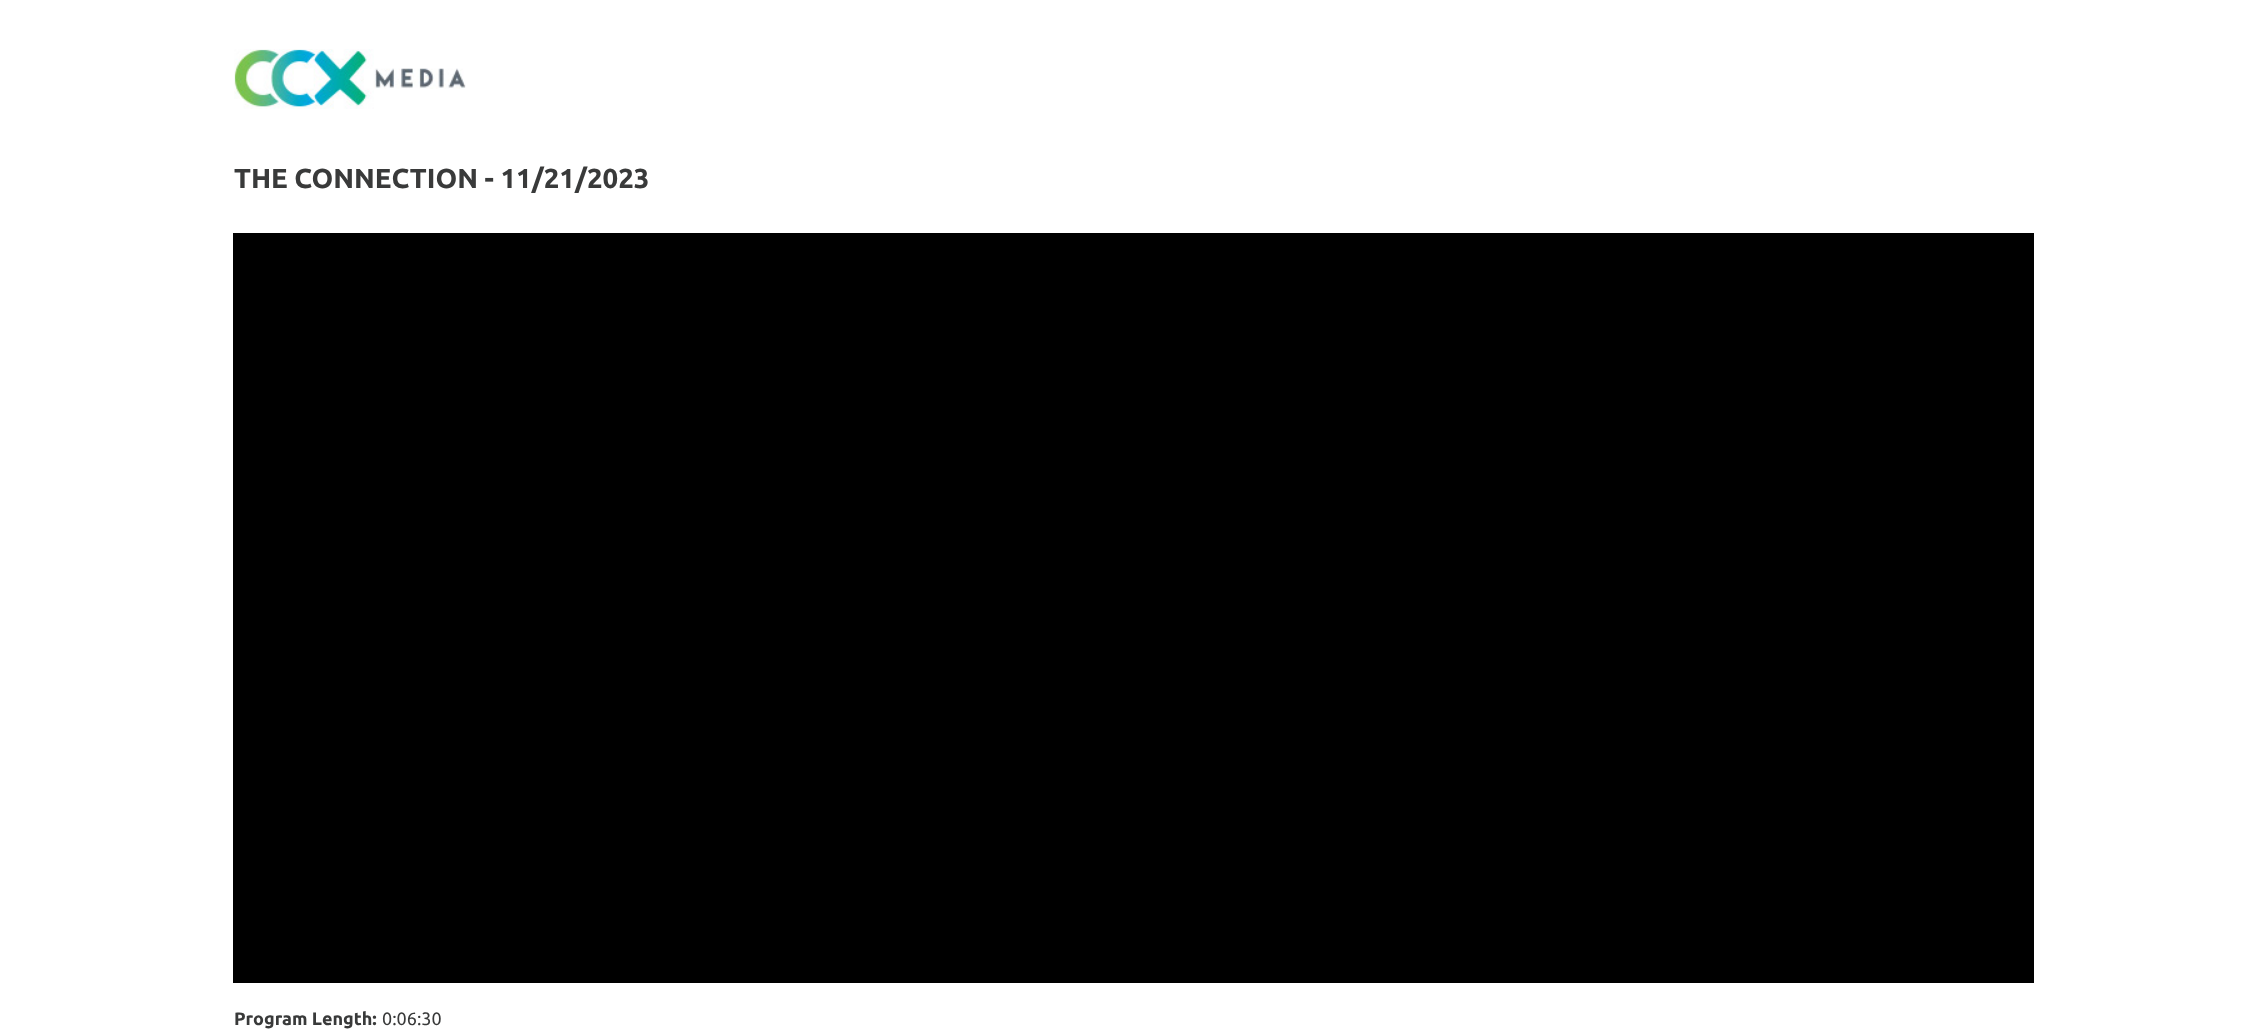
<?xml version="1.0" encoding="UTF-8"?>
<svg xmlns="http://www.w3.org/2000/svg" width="2267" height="1029">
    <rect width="100%" height="100%" fill="#FFFFFF"/>
    <image x="234" y="49" width="232" height="60" href="img_01.png"/>
    <text x="234" y="188" font-family="Ubuntu" font-size="27.5" font-weight="700" fill="#393A3A">THE CONNECTION - 11/21/2023</text>
    <rect x="233" y="233" width="1801" height="750" fill="#000000"/>
    <text x="234" y="1025" font-family="Ubuntu" font-size="18" font-weight="700" fill="#393A3A">Program Length:</text>
    <text x="382" y="1025" font-family="Ubuntu" font-size="18" fill="#393A3A">0:06:30</text>
</svg>
